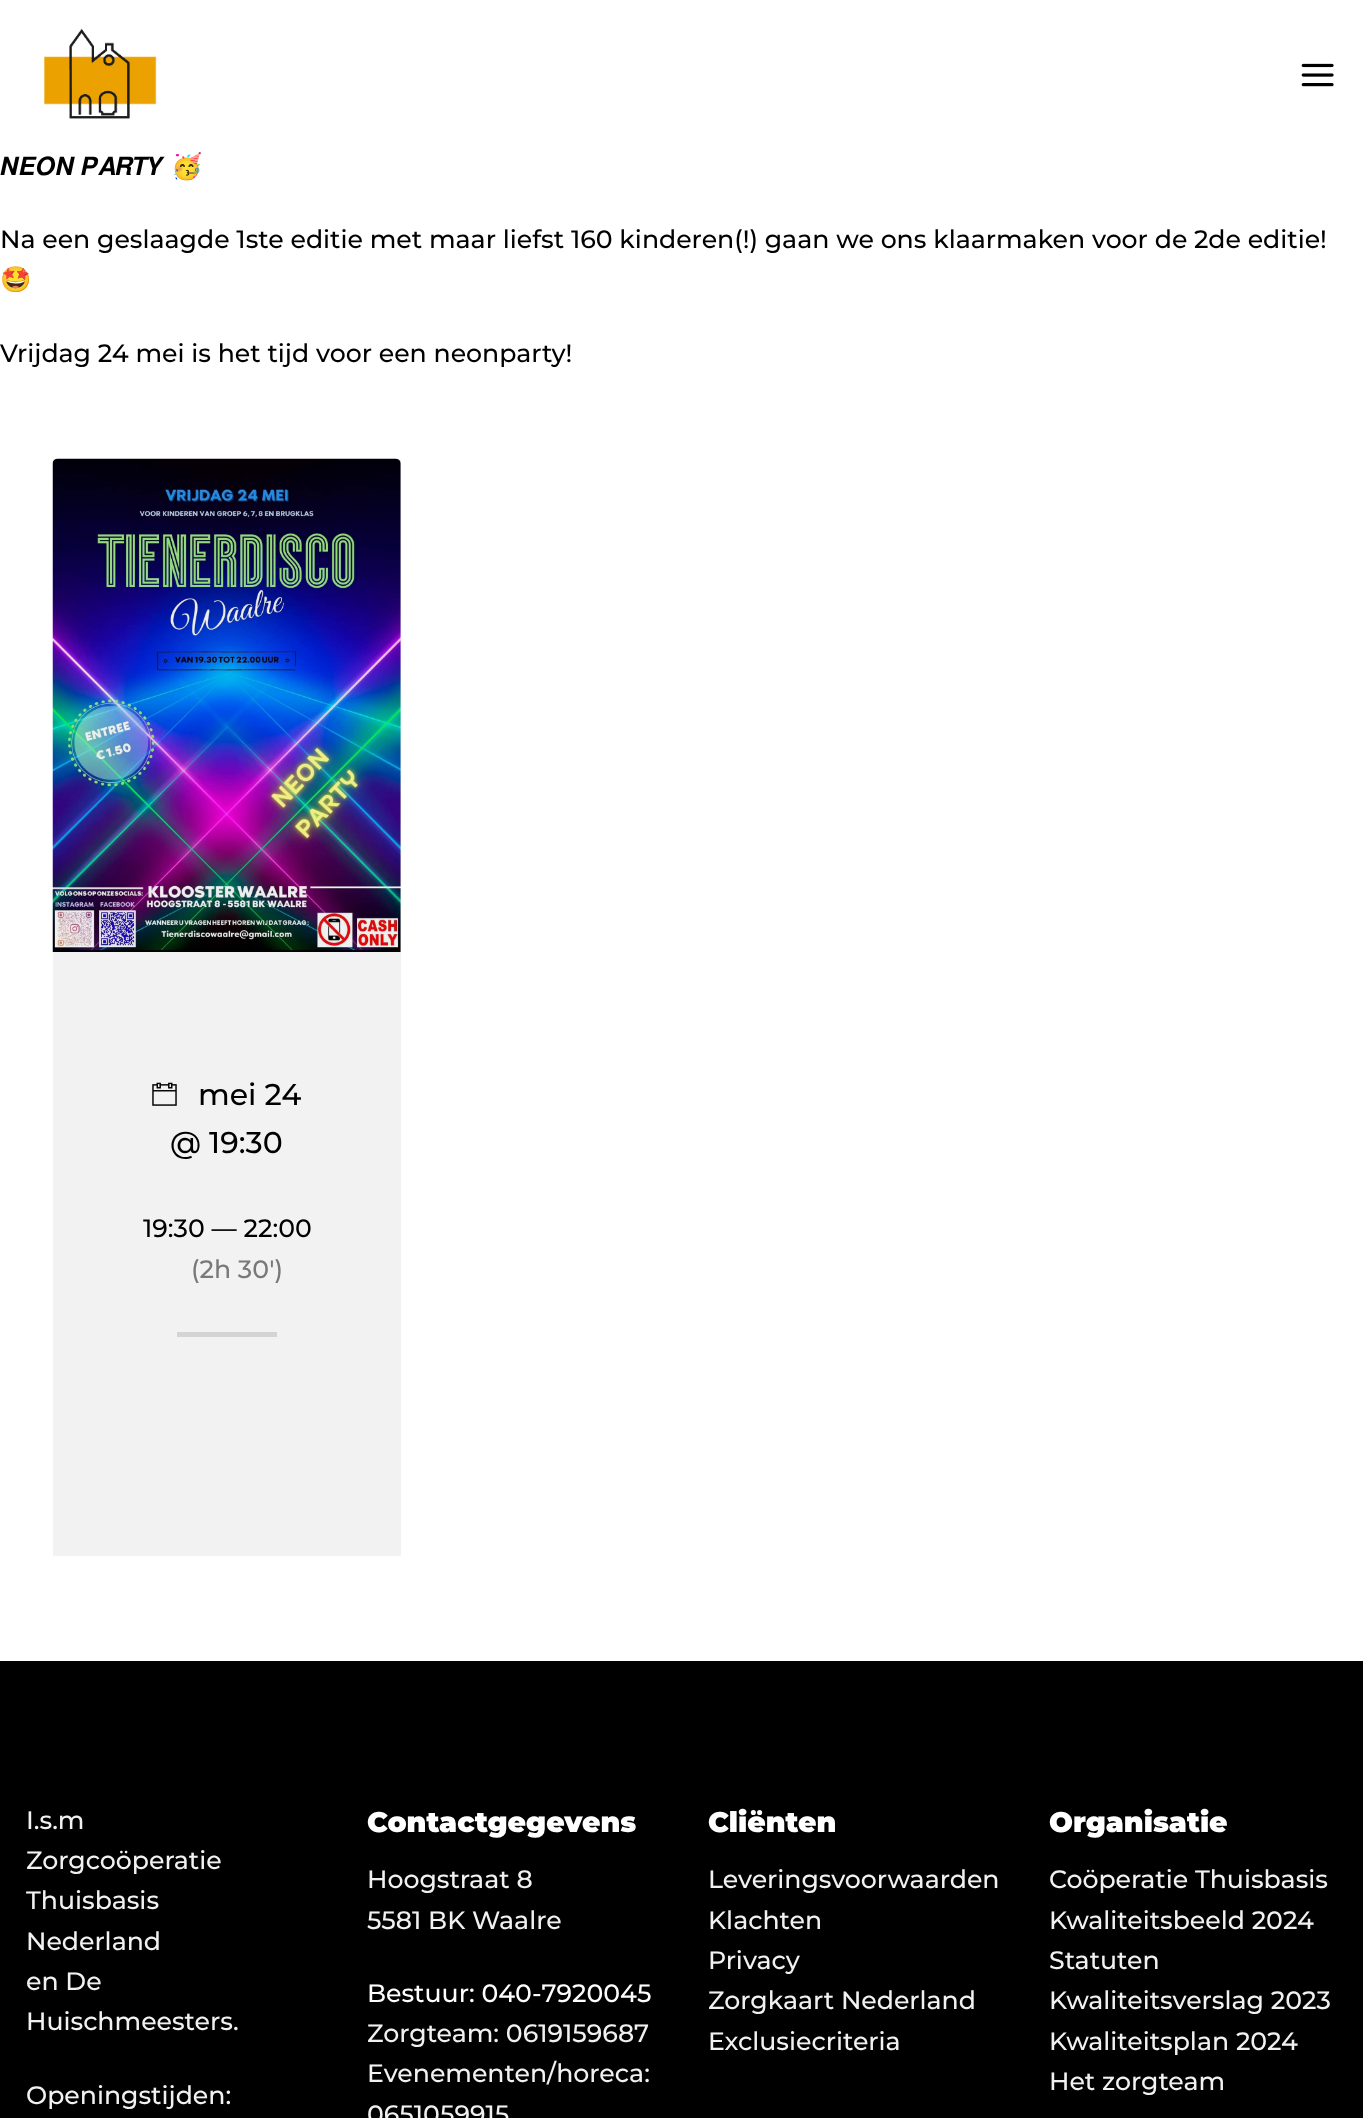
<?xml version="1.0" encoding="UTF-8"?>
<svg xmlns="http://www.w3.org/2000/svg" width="1363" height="2118">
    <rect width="100%" height="100%" fill="#FFFFFF"/>
    <image x="44" y="28" width="113" height="91" href="img_01.png"/>
    <image x="1301" y="63" width="33" height="24" href="img_02.png"/>
    <text x="0" y="175" font-family="FreeSans" font-size="25.2" fill="#000000">𝑵𝑬𝑶𝑵 𝑷𝑨𝑹𝑻𝒀</text>
    <text x="171" y="175" font-family="Noto Color Emoji" font-size="25.2" fill="#000000">🥳</text>
    <text x="0" y="248" font-family="Montserrat" font-size="25.2" font-weight="500" fill="#000000">Na een geslaagde 1ste editie met maar liefst 160 kinderen(!) gaan we ons klaarmaken voor de 2de editie!</text>
    <text x="0" y="288" font-family="Noto Color Emoji" font-size="25.2" fill="#000000">🤩</text>
    <text x="0" y="362" font-family="Montserrat" font-size="25.2" font-weight="500" fill="#000000">Vrijdag 24 mei is het tijd voor een neonparty!</text>
    <image x="52" y="458" width="349" height="494" href="img_03.png"/>
    <image x="152" y="1082" width="25" height="24" href="img_04.png"/>
    <rect x="53" y="459" width="348" height="1097" fill="#000000" fill-opacity="0.05"/>
    <text x="198" y="1105" font-family="Montserrat" font-size="30" font-weight="500" fill="#000000">mei 24</text>
    <text x="170" y="1153" font-family="Montserrat" font-size="30" font-weight="500" fill="#000000">@ 19:30</text>
    <text x="143" y="1237" font-family="Montserrat" font-size="25.2" font-weight="500" fill="#000000">19:30 — 22:00</text>
    <text x="191" y="1278" font-family="Montserrat" font-size="25.2" font-weight="500" fill="#797979">(2h 30′)</text>
    <rect x="177" y="1332" width="100" height="5" fill="#D4D4D4"/>
    <rect x="0" y="1661" width="1363" height="457" fill="#000000"/>
    <text font-family="Montserrat" font-size="25.2" font-weight="500" fill="#F1F1F1">
        <tspan x="26" y="1829">I.s.m</tspan>
        <tspan x="26" y="1869">Zorgcoöperatie</tspan>
        <tspan x="26" y="1909">Thuisbasis</tspan>
        <tspan x="26" y="1950">Nederland</tspan>
        <tspan x="26" y="1990">en De</tspan>
        <tspan x="26" y="2030">Huischmeesters.</tspan>
    </text>
    <text x="26" y="2104" font-family="Montserrat" font-size="25.2" font-weight="500" fill="#F1F1F1">Openingstijden:</text>
    <text x="367" y="1832" font-family="Montserrat" font-size="28.25" font-weight="900" fill="#FFFFFF">Contactgegevens</text>
    <text font-family="Montserrat" font-size="25.2" font-weight="500" fill="#F1F1F1">
        <tspan x="367" y="1888">Hoogstraat 8</tspan>
        <tspan x="367" y="1929">5581 BK Waalre</tspan>
    </text>
    <text x="367" y="2002" font-family="Montserrat" font-size="25.2" font-weight="500" fill="#FFFFFF">Bestuur: 040-7920045</text>
    <text font-family="Montserrat" font-size="25.2" font-weight="500" fill="#F1F1F1">
        <tspan x="367" y="2042">Zorgteam: 0619159687</tspan>
        <tspan x="367" y="2082">Evenementen/horeca:</tspan>
        <tspan x="367" y="2123">0651059915</tspan>
    </text>
    <text x="708" y="1832" font-family="Montserrat" font-size="28.25" font-weight="900" fill="#FFFFFF">Cliënten</text>
    <text font-family="Montserrat" font-size="25.2" font-weight="500" fill="#F1F1F1">
        <tspan x="708" y="1888">Leveringsvoorwaarden</tspan>
        <tspan x="708" y="1929">Klachten</tspan>
        <tspan x="708" y="1969">Privacy</tspan>
        <tspan x="708" y="2009">Zorgkaart Nederland</tspan>
        <tspan x="708" y="2050">Exclusiecriteria</tspan>
    </text>
    <text x="1049" y="1832" font-family="Montserrat" font-size="28.25" font-weight="900" fill="#FFFFFF">Organisatie</text>
    <text font-family="Montserrat" font-size="25.2" font-weight="500" fill="#F1F1F1">
        <tspan x="1049" y="1888">Coöperatie Thuisbasis</tspan>
        <tspan x="1049" y="1929">Kwaliteitsbeeld 2024</tspan>
        <tspan x="1049" y="1969">Statuten</tspan>
        <tspan x="1049" y="2009">Kwaliteitsverslag 2023</tspan>
        <tspan x="1049" y="2050">Kwaliteitsplan 2024</tspan>
        <tspan x="1049" y="2090">Het zorgteam</tspan>
    </text>
</svg>
